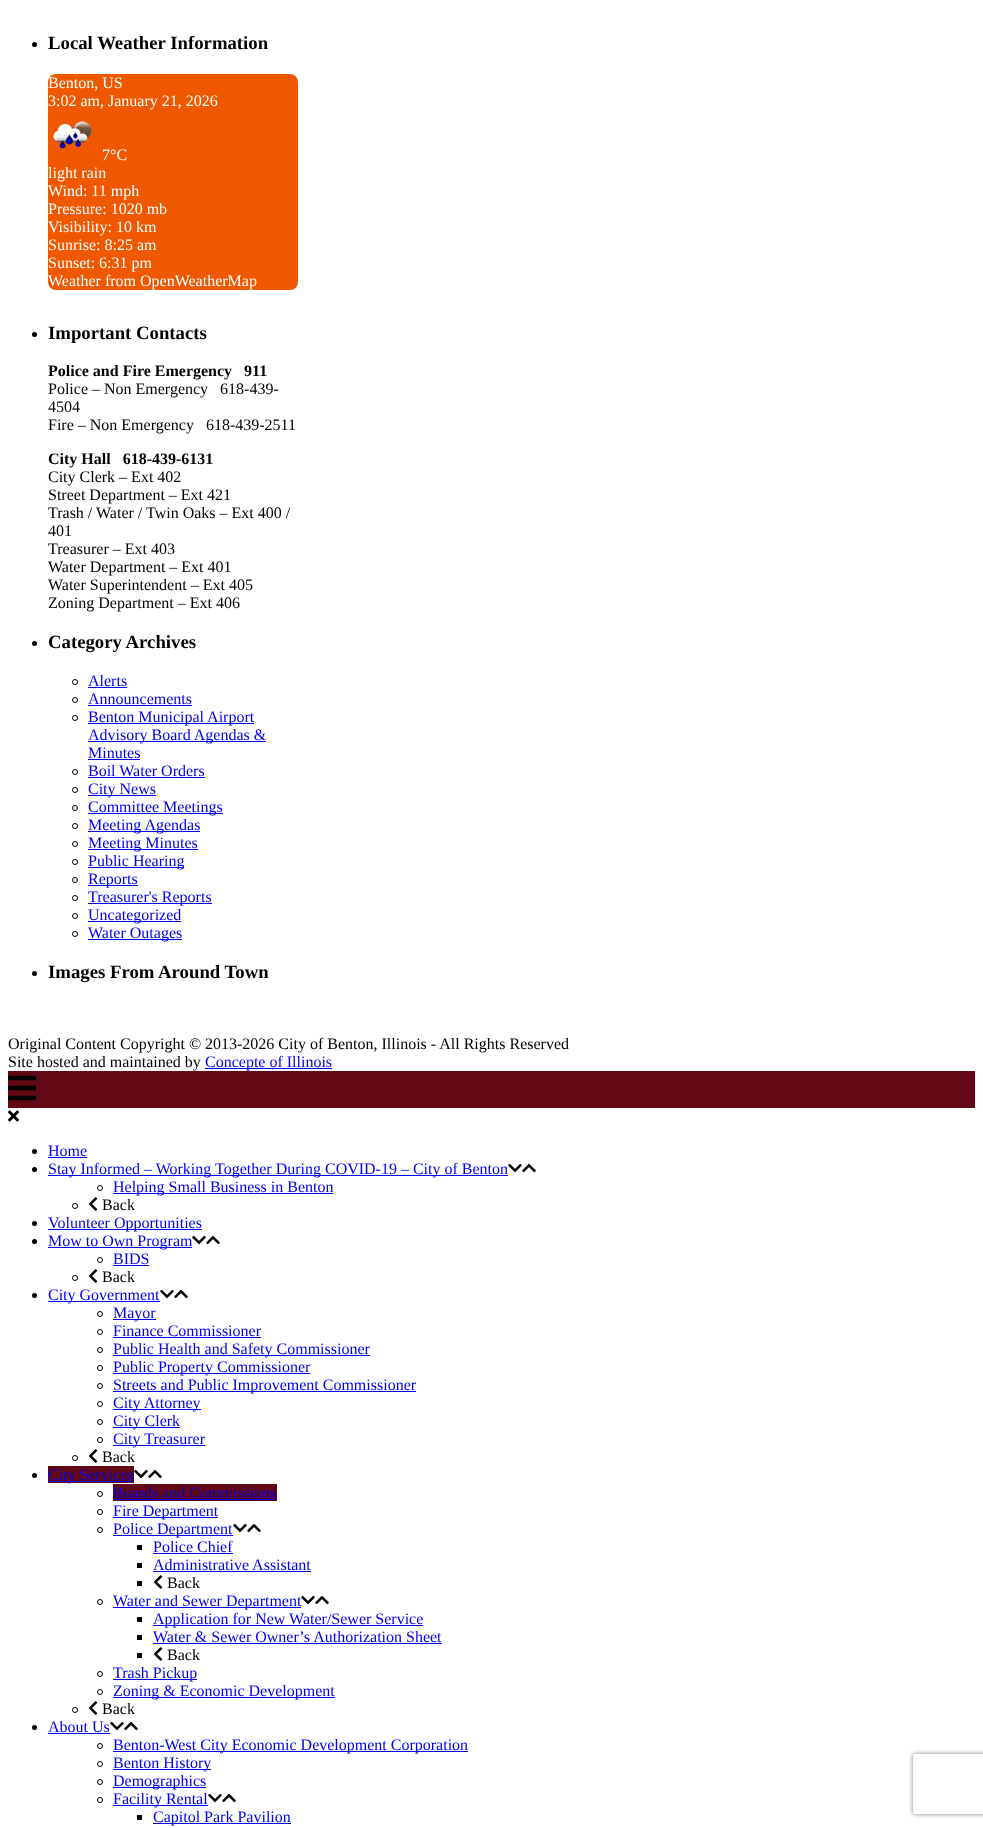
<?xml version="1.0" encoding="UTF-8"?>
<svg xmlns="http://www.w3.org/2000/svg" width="983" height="1828">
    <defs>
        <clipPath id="clip1"><path d="M 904 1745 H 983 V 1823 H 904 Z M 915 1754 H 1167 C 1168 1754 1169 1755 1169 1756 V 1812 C 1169 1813 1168 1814 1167 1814 H 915 C 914 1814 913 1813 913 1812 V 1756 C 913 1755 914 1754 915 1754 Z" clip-rule="evenodd"/></clipPath>
        <filter id="blur1" x="-50%" y="-200%" width="200%" height="500%"><feGaussianBlur stdDeviation="2.5"/></filter>
    </defs>
    <rect width="100%" height="100%" fill="#FFFFFF"/>
    <circle cx="34.5" cy="44.5" r="2.5" fill="#000000"/>
    <text x="48" y="49" font-family="Liberation Serif" font-size="18.75" font-weight="700" fill="#000000">Local Weather Information</text>
    <rect x="48" y="74" width="250" height="216" rx="8" fill="#F05800"/>
    <text font-family="Liberation Serif" font-size="16" fill="#FFFFFF">
        <tspan x="48" y="88">Benton, US</tspan>
        <tspan x="48" y="106">3:02 am, January 21, 2026</tspan>
    </text>
    <image x="53" y="121" width="39" height="28" href="img_01.png"/>
    <text x="102" y="160" font-family="Liberation Serif" font-size="16" fill="#FFFFFF">7°C</text>
    <text font-family="Liberation Serif" font-size="16" fill="#FFFFFF">
        <tspan x="48" y="178">light rain</tspan>
        <tspan x="48" y="196">Wind: 11 mph</tspan>
        <tspan x="48" y="214">Pressure: 1020 mb</tspan>
        <tspan x="48" y="232">Visibility: 10 km</tspan>
        <tspan x="48" y="250">Sunrise: 8:25 am</tspan>
        <tspan x="48" y="268">Sunset: 6:31 pm</tspan>
        <tspan x="48" y="286">Weather from OpenWeatherMap</tspan>
    </text>
    <circle cx="34.5" cy="334.5" r="2.5" fill="#000000"/>
    <text x="48" y="339" font-family="Liberation Serif" font-size="18.75" font-weight="700" fill="#000000">Important Contacts</text>
    <text x="48" y="376" font-family="Liberation Serif" font-size="16" font-weight="700" fill="#000000" xml:space="preserve">Police and Fire Emergency   911</text>
    <text font-family="Liberation Serif" font-size="16" fill="#000000" xml:space="preserve"><tspan x="48" y="394">Police – Non Emergency   618-439-</tspan><tspan x="48" y="412">4504</tspan><tspan x="48" y="430">Fire – Non Emergency   618-439-2511</tspan></text>
    <text x="48" y="464" font-family="Liberation Serif" font-size="16" font-weight="700" fill="#000000" xml:space="preserve">City Hall   618-439-6131</text>
    <text font-family="Liberation Serif" font-size="16" fill="#000000">
        <tspan x="48" y="482">City Clerk – Ext 402</tspan>
        <tspan x="48" y="500">Street Department – Ext 421</tspan>
        <tspan x="48" y="518">Trash / Water / Twin Oaks – Ext 400 /</tspan>
        <tspan x="48" y="536">401</tspan>
        <tspan x="48" y="554">Treasurer – Ext 403</tspan>
        <tspan x="48" y="572">Water Department – Ext 401</tspan>
        <tspan x="48" y="590">Water Superintendent – Ext 405</tspan>
        <tspan x="48" y="608">Zoning Department – Ext 406</tspan>
    </text>
    <circle cx="34.5" cy="643.5" r="2.5" fill="#000000"/>
    <text x="48" y="648" font-family="Liberation Serif" font-size="18.75" font-weight="700" fill="#000000">Category Archives</text>
    <circle cx="75" cy="682" r="2.5" fill="none" stroke="#000000"/>
    <text x="88" y="686" font-family="Liberation Serif" font-size="16" fill="#0000EE">Alerts</text>
    <rect x="88" y="687" width="39" height="1" fill="#0000EE"/>
    <circle cx="75" cy="700" r="2.5" fill="none" stroke="#000000"/>
    <text x="88" y="704" font-family="Liberation Serif" font-size="16" fill="#0000EE">Announcements</text>
    <rect x="88" y="705" width="104" height="1" fill="#0000EE"/>
    <circle cx="75" cy="718" r="2.5" fill="none" stroke="#000000"/>
    <rect x="88" y="723" width="166" height="1" fill="#0000EE"/>
    <text x="88" y="722" font-family="Liberation Serif" font-size="16" fill="#0000EE">Benton Municipal Airport</text>
    <rect x="88" y="741" width="178" height="1" fill="#0000EE"/>
    <text font-family="Liberation Serif" font-size="16" fill="#0000EE">
        <tspan x="88" y="740">Advisory Board Agendas &amp;</tspan>
        <tspan x="88" y="758">Minutes</tspan>
    </text>
    <rect x="88" y="759" width="52" height="1" fill="#0000EE"/>
    <circle cx="75" cy="772" r="2.5" fill="none" stroke="#000000"/>
    <text x="88" y="776" font-family="Liberation Serif" font-size="16" fill="#0000EE">Boil Water Orders</text>
    <rect x="88" y="777" width="117" height="1" fill="#0000EE"/>
    <circle cx="75" cy="790" r="2.5" fill="none" stroke="#000000"/>
    <rect x="88" y="795" width="68" height="1" fill="#0000EE"/>
    <text x="88" y="794" font-family="Liberation Serif" font-size="16" fill="#0000EE">City News</text>
    <circle cx="75" cy="808" r="2.5" fill="none" stroke="#000000"/>
    <rect x="88" y="813" width="135" height="1" fill="#0000EE"/>
    <text x="88" y="812" font-family="Liberation Serif" font-size="16" fill="#0000EE">Committee Meetings</text>
    <circle cx="75" cy="826" r="2.5" fill="none" stroke="#000000"/>
    <rect x="88" y="831" width="112" height="1" fill="#0000EE"/>
    <text x="88" y="830" font-family="Liberation Serif" font-size="16" fill="#0000EE">Meeting Agendas</text>
    <circle cx="75" cy="844" r="2.5" fill="none" stroke="#000000"/>
    <rect x="88" y="849" width="110" height="1" fill="#0000EE"/>
    <text x="88" y="848" font-family="Liberation Serif" font-size="16" fill="#0000EE">Meeting Minutes</text>
    <circle cx="75" cy="862" r="2.5" fill="none" stroke="#000000"/>
    <rect x="88" y="867" width="96" height="1" fill="#0000EE"/>
    <text x="88" y="866" font-family="Liberation Serif" font-size="16" fill="#0000EE">Public Hearing</text>
    <circle cx="75" cy="880" r="2.5" fill="none" stroke="#000000"/>
    <rect x="88" y="885" width="50" height="1" fill="#0000EE"/>
    <text x="88" y="884" font-family="Liberation Serif" font-size="16" fill="#0000EE">Reports</text>
    <circle cx="75" cy="898" r="2.5" fill="none" stroke="#000000"/>
    <rect x="88" y="903" width="124" height="1" fill="#0000EE"/>
    <text x="88" y="902" font-family="Liberation Serif" font-size="16" fill="#0000EE">Treasurer's Reports</text>
    <circle cx="75" cy="916" r="2.5" fill="none" stroke="#000000"/>
    <rect x="88" y="921" width="93" height="1" fill="#0000EE"/>
    <text x="88" y="920" font-family="Liberation Serif" font-size="16" fill="#0000EE">Uncategorized</text>
    <circle cx="75" cy="934" r="2.5" fill="none" stroke="#000000"/>
    <rect x="88" y="939" width="94" height="1" fill="#0000EE"/>
    <text x="88" y="938" font-family="Liberation Serif" font-size="16" fill="#0000EE">Water Outages</text>
    <circle cx="34.5" cy="973.5" r="2.5" fill="#000000"/>
    <text x="48" y="978" font-family="Liberation Serif" font-size="18.75" font-weight="700" fill="#000000">Images From Around Town</text>
    <text font-family="Liberation Serif" font-size="16" fill="#000000">
        <tspan x="8" y="1049">Original Content Copyright © 2013-2026 City of Benton, Illinois - All Rights Reserved</tspan>
        <tspan x="8" y="1067">Site hosted and maintained by</tspan>
    </text>
    <rect x="205" y="1068" width="127" height="1" fill="#0000EE"/>
    <text x="205" y="1067" font-family="Liberation Serif" font-size="16" fill="#0000EE">Concepte of Illinois</text>
    <rect x="8" y="1071" width="967" height="37" fill="#630915"/>
    <image x="8" y="1075" width="28" height="26" href="img_02.png"/>
    <image x="8" y="1110" width="11" height="12" href="img_03.png"/>
    <circle cx="34.5" cy="1151.5" r="2.5" fill="#000000"/>
    <text x="48" y="1156" font-family="Liberation Serif" font-size="16" fill="#0000EE">Home</text>
    <rect x="48" y="1157" width="39" height="1" fill="#0000EE"/>
    <circle cx="34.5" cy="1169.5" r="2.5" fill="#000000"/>
    <rect x="48" y="1175" width="460" height="1" fill="#0000EE"/>
    <text x="48" y="1174" font-family="Liberation Serif" font-size="16" fill="#0000EE">Stay Informed – Working Together During COVID-19 – City of Benton</text>
    <image x="508" y="1163" width="14" height="10" href="img_04.png"/>
    <image x="522" y="1163" width="14" height="10" href="img_05.png"/>
    <circle cx="100" cy="1188" r="2.5" fill="none" stroke="#000000"/>
    <rect x="113" y="1193" width="220" height="1" fill="#0000EE"/>
    <text x="113" y="1192" font-family="Liberation Serif" font-size="16" fill="#0000EE">Helping Small Business in Benton</text>
    <circle cx="75" cy="1206" r="2.5" fill="none" stroke="#000000"/>
    <image x="88" y="1197" width="10" height="14" href="img_06.png"/>
    <text x="102" y="1210" font-family="Liberation Serif" font-size="16" fill="#000000">Back</text>
    <circle cx="34.5" cy="1223.5" r="2.5" fill="#000000"/>
    <rect x="48" y="1229" width="154" height="1" fill="#0000EE"/>
    <text x="48" y="1228" font-family="Liberation Serif" font-size="16" fill="#0000EE">Volunteer Opportunities</text>
    <circle cx="34.5" cy="1241.5" r="2.5" fill="#000000"/>
    <rect x="48" y="1247" width="144" height="1" fill="#0000EE"/>
    <text x="48" y="1246" font-family="Liberation Serif" font-size="16" fill="#0000EE">Mow to Own Program</text>
    <image x="192" y="1235" width="14" height="10" href="img_04.png"/>
    <image x="206" y="1235" width="14" height="10" href="img_05.png"/>
    <circle cx="100" cy="1260" r="2.5" fill="none" stroke="#000000"/>
    <text x="113" y="1264" font-family="Liberation Serif" font-size="16" fill="#0000EE">BIDS</text>
    <rect x="113" y="1265" width="36" height="1" fill="#0000EE"/>
    <circle cx="75" cy="1278" r="2.5" fill="none" stroke="#000000"/>
    <image x="88" y="1269" width="10" height="14" href="img_06.png"/>
    <text x="102" y="1282" font-family="Liberation Serif" font-size="16" fill="#000000">Back</text>
    <circle cx="34.5" cy="1295.5" r="2.5" fill="#000000"/>
    <rect x="48" y="1301" width="112" height="1" fill="#0000EE"/>
    <text x="48" y="1300" font-family="Liberation Serif" font-size="16" fill="#0000EE">City Government</text>
    <image x="160" y="1289" width="14" height="10" href="img_04.png"/>
    <image x="174" y="1289" width="14" height="10" href="img_05.png"/>
    <circle cx="100" cy="1314" r="2.5" fill="none" stroke="#000000"/>
    <rect x="113" y="1319" width="43" height="1" fill="#0000EE"/>
    <text x="113" y="1318" font-family="Liberation Serif" font-size="16" fill="#0000EE">Mayor</text>
    <circle cx="100" cy="1332" r="2.5" fill="none" stroke="#000000"/>
    <text x="113" y="1336" font-family="Liberation Serif" font-size="16" fill="#0000EE">Finance Commissioner</text>
    <rect x="113" y="1337" width="148" height="1" fill="#0000EE"/>
    <circle cx="100" cy="1350" r="2.5" fill="none" stroke="#000000"/>
    <rect x="113" y="1355" width="257" height="1" fill="#0000EE"/>
    <text x="113" y="1354" font-family="Liberation Serif" font-size="16" fill="#0000EE">Public Health and Safety Commissioner</text>
    <circle cx="100" cy="1368" r="2.5" fill="none" stroke="#000000"/>
    <rect x="113" y="1373" width="197" height="1" fill="#0000EE"/>
    <text x="113" y="1372" font-family="Liberation Serif" font-size="16" fill="#0000EE">Public Property Commissioner</text>
    <circle cx="100" cy="1386" r="2.5" fill="none" stroke="#000000"/>
    <rect x="113" y="1391" width="303" height="1" fill="#0000EE"/>
    <text x="113" y="1390" font-family="Liberation Serif" font-size="16" fill="#0000EE">Streets and Public Improvement Commissioner</text>
    <circle cx="100" cy="1404" r="2.5" fill="none" stroke="#000000"/>
    <rect x="113" y="1409" width="88" height="1" fill="#0000EE"/>
    <text x="113" y="1408" font-family="Liberation Serif" font-size="16" fill="#0000EE">City Attorney</text>
    <circle cx="100" cy="1422" r="2.5" fill="none" stroke="#000000"/>
    <rect x="113" y="1427" width="67" height="1" fill="#0000EE"/>
    <text x="113" y="1426" font-family="Liberation Serif" font-size="16" fill="#0000EE">City Clerk</text>
    <circle cx="100" cy="1440" r="2.5" fill="none" stroke="#000000"/>
    <rect x="113" y="1445" width="92" height="1" fill="#0000EE"/>
    <text x="113" y="1444" font-family="Liberation Serif" font-size="16" fill="#0000EE">City Treasurer</text>
    <circle cx="75" cy="1458" r="2.5" fill="none" stroke="#000000"/>
    <image x="88" y="1449" width="10" height="14" href="img_06.png"/>
    <text x="102" y="1462" font-family="Liberation Serif" font-size="16" fill="#000000">Back</text>
    <circle cx="34.5" cy="1475.5" r="2.5" fill="#000000"/>
    <rect x="48" y="1466" width="86" height="17" fill="#630915"/>
    <rect x="48" y="1481" width="86" height="1" fill="#0000EE"/>
    <text x="48" y="1480" font-family="Liberation Serif" font-size="16" fill="#0000EE">City Services</text>
    <image x="134" y="1469" width="14" height="10" href="img_04.png"/>
    <image x="148" y="1469" width="14" height="10" href="img_05.png"/>
    <circle cx="100" cy="1494" r="2.5" fill="none" stroke="#000000"/>
    <rect x="113" y="1484" width="164" height="17" fill="#630915"/>
    <text x="113" y="1498" font-family="Liberation Serif" font-size="16" fill="#0000EE">Boards and Commissions</text>
    <rect x="113" y="1499" width="164" height="1" fill="#0000EE"/>
    <circle cx="100" cy="1512" r="2.5" fill="none" stroke="#000000"/>
    <rect x="113" y="1517" width="105" height="1" fill="#0000EE"/>
    <text x="113" y="1516" font-family="Liberation Serif" font-size="16" fill="#0000EE">Fire Department</text>
    <circle cx="100" cy="1530" r="2.5" fill="none" stroke="#000000"/>
    <rect x="113" y="1535" width="120" height="1" fill="#0000EE"/>
    <text x="113" y="1534" font-family="Liberation Serif" font-size="16" fill="#0000EE">Police Department</text>
    <image x="233" y="1523" width="14" height="10" href="img_04.png"/>
    <image x="247" y="1523" width="14" height="10" href="img_05.png"/>
    <rect x="137" y="1545" width="5" height="5" fill="#000000"/>
    <text x="153" y="1552" font-family="Liberation Serif" font-size="16" fill="#0000EE">Police Chief</text>
    <rect x="153" y="1553" width="80" height="1" fill="#0000EE"/>
    <rect x="137" y="1563" width="5" height="5" fill="#000000"/>
    <text x="153" y="1570" font-family="Liberation Serif" font-size="16" fill="#0000EE">Administrative Assistant</text>
    <rect x="153" y="1571" width="158" height="1" fill="#0000EE"/>
    <rect x="137" y="1581" width="5" height="5" fill="#000000"/>
    <image x="153" y="1575" width="10" height="14" href="img_06.png"/>
    <text x="167" y="1588" font-family="Liberation Serif" font-size="16" fill="#000000">Back</text>
    <circle cx="100" cy="1602" r="2.5" fill="none" stroke="#000000"/>
    <rect x="113" y="1607" width="188" height="1" fill="#0000EE"/>
    <text x="113" y="1606" font-family="Liberation Serif" font-size="16" fill="#0000EE">Water and Sewer Department</text>
    <image x="301" y="1595" width="14" height="10" href="img_07.png"/>
    <image x="315" y="1595" width="14" height="10" href="img_05.png"/>
    <rect x="137" y="1617" width="5" height="5" fill="#000000"/>
    <rect x="153" y="1625" width="270" height="1" fill="#0000EE"/>
    <text x="153" y="1624" font-family="Liberation Serif" font-size="16" fill="#0000EE">Application for New Water/Sewer Service</text>
    <rect x="137" y="1635" width="5" height="5" fill="#000000"/>
    <text x="153" y="1642" font-family="Liberation Serif" font-size="16" fill="#0000EE">Water &amp; Sewer Owner’s Authorization Sheet</text>
    <rect x="153" y="1643" width="289" height="1" fill="#0000EE"/>
    <rect x="137" y="1653" width="5" height="5" fill="#000000"/>
    <image x="153" y="1647" width="10" height="14" href="img_06.png"/>
    <text x="167" y="1660" font-family="Liberation Serif" font-size="16" fill="#000000">Back</text>
    <circle cx="100" cy="1674" r="2.5" fill="none" stroke="#000000"/>
    <rect x="113" y="1679" width="84" height="1" fill="#0000EE"/>
    <text x="113" y="1678" font-family="Liberation Serif" font-size="16" fill="#0000EE">Trash Pickup</text>
    <circle cx="100" cy="1692" r="2.5" fill="none" stroke="#000000"/>
    <rect x="113" y="1697" width="222" height="1" fill="#0000EE"/>
    <text x="113" y="1696" font-family="Liberation Serif" font-size="16" fill="#0000EE">Zoning &amp; Economic Development</text>
    <circle cx="75" cy="1710" r="2.5" fill="none" stroke="#000000"/>
    <image x="88" y="1701" width="10" height="14" href="img_06.png"/>
    <text x="102" y="1714" font-family="Liberation Serif" font-size="16" fill="#000000">Back</text>
    <circle cx="34.5" cy="1727.5" r="2.5" fill="#000000"/>
    <text x="48" y="1732" font-family="Liberation Serif" font-size="16" fill="#0000EE">About Us</text>
    <rect x="48" y="1733" width="62" height="1" fill="#0000EE"/>
    <image x="110" y="1721" width="14" height="10" href="img_04.png"/>
    <image x="124" y="1721" width="14" height="10" href="img_05.png"/>
    <circle cx="100" cy="1746" r="2.5" fill="none" stroke="#000000"/>
    <rect x="113" y="1751" width="355" height="1" fill="#0000EE"/>
    <text x="113" y="1750" font-family="Liberation Serif" font-size="16" fill="#0000EE">Benton-West City Economic Development Corporation</text>
    <circle cx="100" cy="1764" r="2.5" fill="none" stroke="#000000"/>
    <rect x="113" y="1769" width="98" height="1" fill="#0000EE"/>
    <text x="113" y="1768" font-family="Liberation Serif" font-size="16" fill="#0000EE">Benton History</text>
    <circle cx="100" cy="1782" r="2.5" fill="none" stroke="#000000"/>
    <rect x="113" y="1787" width="93" height="1" fill="#0000EE"/>
    <text x="113" y="1786" font-family="Liberation Serif" font-size="16" fill="#0000EE">Demographics</text>
    <circle cx="100" cy="1800" r="2.5" fill="none" stroke="#000000"/>
    <rect x="113" y="1805" width="95" height="1" fill="#0000EE"/>
    <text x="113" y="1804" font-family="Liberation Serif" font-size="16" fill="#0000EE">Facility Rental</text>
    <image x="208" y="1793" width="14" height="10" href="img_04.png"/>
    <image x="222" y="1793" width="14" height="10" href="img_05.png"/>
    <rect x="137" y="1815" width="5" height="5" fill="#000000"/>
    <rect x="153" y="1823" width="138" height="1" fill="#0000EE"/>
    <text x="153" y="1822" font-family="Liberation Serif" font-size="16" fill="#0000EE">Capitol Park Pavilion</text>
    <g clip-path="url(#clip1)">
        <rect x="913" y="1754" width="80" height="60" rx="2" fill="#808080" filter="url(#blur1)"/>
    </g>
</svg>
